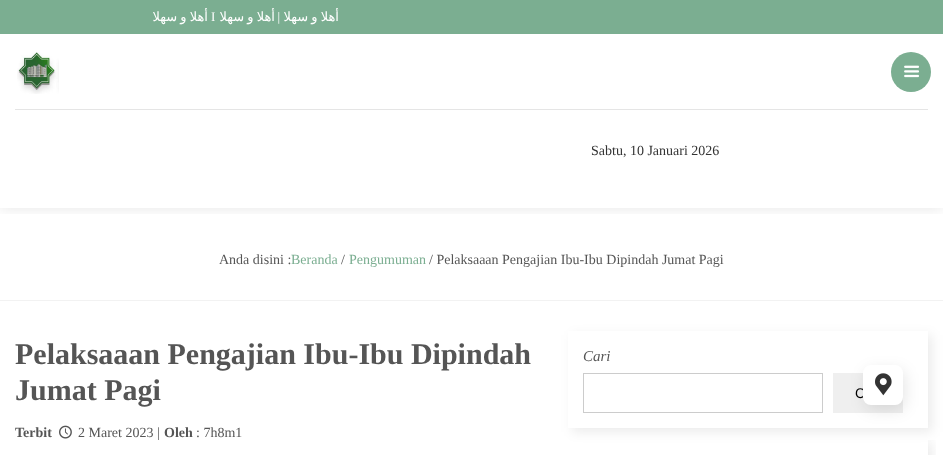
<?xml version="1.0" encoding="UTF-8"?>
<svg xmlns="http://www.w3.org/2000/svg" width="943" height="455">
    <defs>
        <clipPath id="clip1"><rect x="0" y="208" width="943" height="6"/></clipPath>
        <filter id="blur1" x="-50%" y="-200%" width="200%" height="500%"><feGaussianBlur stdDeviation="7.5"/></filter>
        <clipPath id="clip2"><rect x="153" y="5" width="186" height="24"/></clipPath>
        <clipPath id="clip3"><path d="M 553 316 H 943 V 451 H 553 Z M 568 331 H 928 V 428 H 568 Z" clip-rule="evenodd"/></clipPath>
        <filter id="blur2" x="-50%" y="-200%" width="200%" height="500%"><feGaussianBlur stdDeviation="6"/></filter>
        <clipPath id="clip4"><rect x="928" y="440" width="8" height="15"/></clipPath>
    </defs>
    <rect width="100%" height="100%" fill="#FFFFFF"/>
    <g clip-path="url(#clip1)">
        <rect x="0" y="0" width="943" height="208" fill="#000000" fill-opacity="0.1" filter="url(#blur1)"/>
    </g>
    <rect x="0" y="0" width="943" height="34" fill="#7BAE91"/>
    <text x="208" y="21" word-spacing="-1" font-family="DejaVu Sans" font-size="13" direction="rtl" fill="#FFFFFF">أهلا و سهلا</text>
    <text x="211" y="21" font-family="Liberation Serif" font-size="13" fill="#FFFFFF">I</text>
    <text x="275" y="21" word-spacing="-1" font-family="DejaVu Sans" font-size="13" direction="rtl" fill="#FFFFFF">أهلا و سهلا</text>
    <text x="280" y="21" font-family="Liberation Serif" font-size="13" direction="rtl" fill="#FFFFFF">|</text>
    <g clip-path="url(#clip2)">
        <text x="339" y="21" word-spacing="-1" font-family="DejaVu Sans" font-size="13" direction="rtl" fill="#FFFFFF">أهلا و سهلا</text>
    </g>
    <rect x="15" y="109" width="913" height="1" fill="#E5E5E5"/>
    <image x="17" y="52" width="42" height="42" href="img_01.png"/>
    <circle cx="911" cy="72" r="20" fill="#7BAE91"/>
    <image x="904" y="65" width="16" height="13" href="img_02.png"/>
    <text x="591" y="155" font-family="Liberation Serif" font-size="14" fill="#333333">Sabtu, 10 Januari 2026</text>
    <rect x="0" y="300" width="943" height="1" fill="#F2F2F2"/>
    <text x="219" y="264" font-family="Liberation Serif" font-size="14" fill="#555555">Anda disini :</text>
    <text x="291" y="264" font-family="Liberation Serif" font-size="14" fill="#7BAE91">Beranda</text>
    <text x="341" y="264" font-family="Liberation Serif" font-size="14" fill="#555555">/</text>
    <text x="349" y="264" font-family="Liberation Serif" font-size="14" fill="#7BAE91">Pengumuman</text>
    <text x="429" y="264" font-family="Liberation Serif" font-size="14" fill="#555555">/ Pelaksaaan Pengajian Ibu-Ibu Dipindah Jumat Pagi</text>
    <text font-family="Liberation Serif" font-size="30" font-weight="700" fill="#555555">
        <tspan x="15" y="364">Pelaksaaan Pengajian Ibu-Ibu Dipindah</tspan>
        <tspan x="15" y="400">Jumat Pagi</tspan>
    </text>
    <text x="15" y="437" font-family="Liberation Serif" font-size="14" font-weight="700" fill="#555555">Terbit</text>
    <image x="59" y="425" width="13" height="14" href="img_03.png"/>
    <text x="78" y="437" font-family="Liberation Serif" font-size="14" fill="#555555">2 Maret 2023 |</text>
    <text x="164" y="437" font-family="Liberation Serif" font-size="14" font-weight="700" fill="#555555">Oleh</text>
    <text x="196" y="437" font-family="Liberation Serif" font-size="14" fill="#555555">: 7h8m1</text>
    <g clip-path="url(#clip3)">
        <rect x="572" y="335" width="360" height="97" fill="#000000" fill-opacity="0.08" filter="url(#blur2)"/>
    </g>
    <text x="583" y="361" font-family="Liberation Serif" font-size="15" font-style="italic" fill="#555555">Cari</text>
    <rect x="583.5" y="373.5" width="239" height="39" fill="none" stroke="#CCCCCC"/>
    <rect x="833" y="373" width="70" height="40" fill="#EFEFEF"/>
    <text x="855" y="398" font-family="Liberation Sans" font-size="14" fill="#000000">C</text>
    <g clip-path="url(#clip4)">
        <rect x="572" y="442" width="360" height="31" fill="#000000" fill-opacity="0.08" filter="url(#blur2)"/>
    </g>
    <rect x="865" y="370" width="40" height="40" rx="8" fill="#000000" fill-opacity="0.1" filter="url(#blur1)"/>
    <rect x="863" y="365" width="40" height="40" rx="8" fill="#FFFFFF"/>
    <image x="875" y="373" width="17" height="23" href="img_04.png"/>
</svg>
